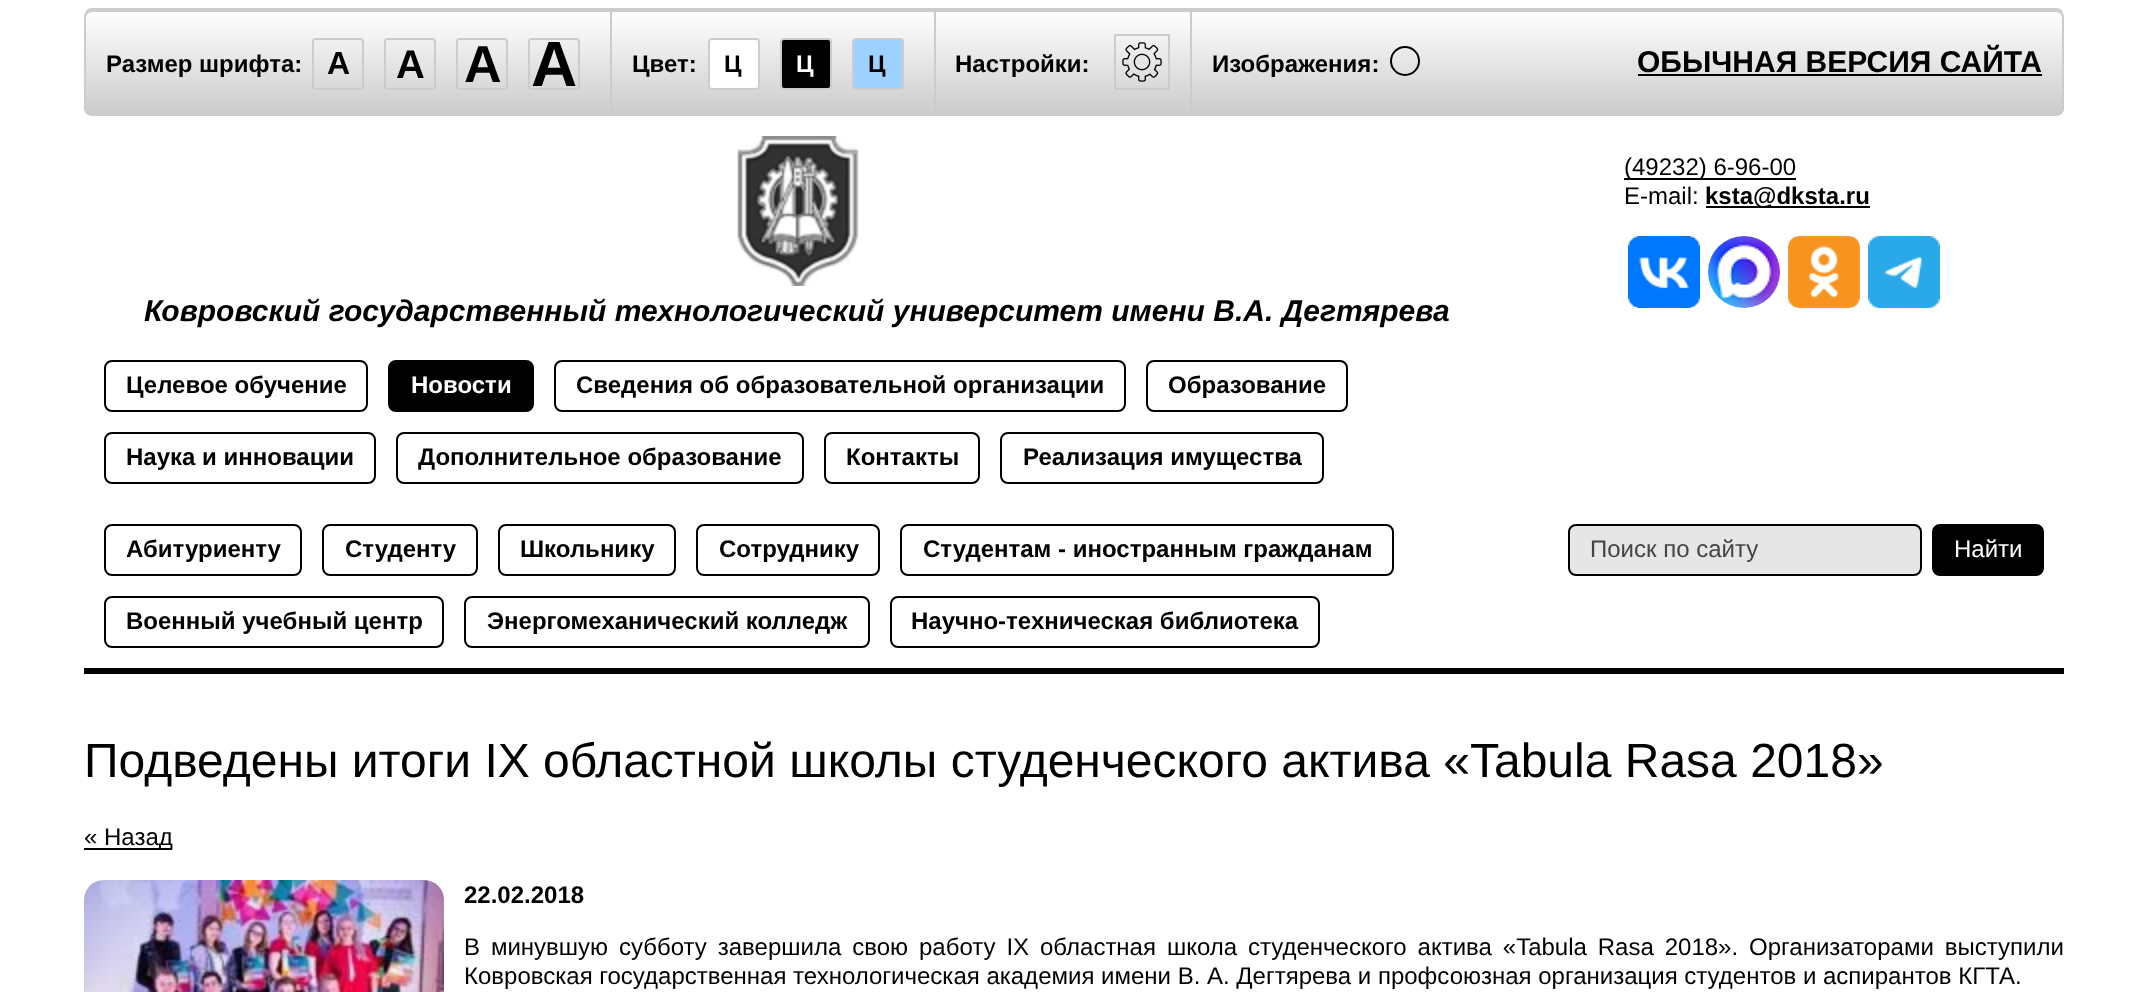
<?xml version="1.0" encoding="UTF-8"?>
<svg xmlns="http://www.w3.org/2000/svg" width="2148" height="992">
    <defs>
        <clipPath id="clip1"><rect x="84" y="10" width="1980" height="106" rx="8"/></clipPath>
        <linearGradient id="g1" gradientUnits="userSpaceOnUse" x1="1074" y1="12" x2="1074" y2="114"><stop offset="0" stop-color="#FFFFFF"/><stop offset="1" stop-color="#CCCCCC"/></linearGradient>
    </defs>
    <rect width="100%" height="100%" fill="#FFFFFF"/>
    <rect x="84" y="668" width="1980" height="6" fill="#000000"/>
    <path d="M 92 8 C 86 8 84 13 84 18 C 84 14 88 10 92 10 H 2056 C 2060 10 2064 14 2064 18 C 2064 13 2062 8 2056 8 Z" fill="#CCCCCC"/>
    <g clip-path="url(#clip1)">
        <rect x="84" y="12" width="1980" height="102" fill="url(#g1)"/>
    </g>
    <rect x="85" y="11" width="1978" height="104" rx="7" fill="none" stroke="#CCCCCC" stroke-width="2"/>
    <rect x="610" y="12" width="2" height="102" fill="#CCCCCC"/>
    <text x="106" y="72" font-family="Liberation Sans" font-size="24" font-weight="700" fill="#000000">Размер шрифта:</text>
    <rect x="313" y="39" width="50" height="50" rx="3" fill="none" stroke="#CCCCCC" stroke-width="2"/>
    <text x="327" y="74" font-family="Liberation Sans" font-size="32" font-weight="700" fill="#000000">A</text>
    <rect x="385" y="39" width="50" height="50" rx="3" fill="none" stroke="#CCCCCC" stroke-width="2"/>
    <text x="396" y="78" font-family="Liberation Sans" font-size="40" font-weight="700" fill="#000000">A</text>
    <rect x="457" y="39" width="50" height="50" rx="3" fill="none" stroke="#CCCCCC" stroke-width="2"/>
    <text x="464" y="82" font-family="Liberation Sans" font-size="52" font-weight="700" fill="#000000">A</text>
    <rect x="529" y="39" width="50" height="50" rx="3" fill="none" stroke="#CCCCCC" stroke-width="2"/>
    <text x="531" y="86" font-family="Liberation Sans" font-size="64" font-weight="700" fill="#000000">A</text>
    <rect x="934" y="12" width="2" height="102" fill="#CCCCCC"/>
    <text x="632" y="72" font-family="Liberation Sans" font-size="24" font-weight="700" fill="#000000">Цвет:</text>
    <rect x="709" y="39" width="50" height="50" rx="3" fill="#FFFFFF" stroke="#CCCCCC" stroke-width="2"/>
    <text x="724" y="72" font-family="Liberation Sans" font-size="24" font-weight="700" fill="#000000">Ц</text>
    <rect x="781" y="39" width="50" height="50" rx="3" fill="#000000" stroke="#CCCCCC" stroke-width="2"/>
    <text x="796" y="72" font-family="Liberation Sans" font-size="24" font-weight="700" fill="#FFFFFF">Ц</text>
    <rect x="853" y="39" width="50" height="50" rx="3" fill="#9DD1FF" stroke="#CCCCCC" stroke-width="2"/>
    <text x="868" y="72" font-family="Liberation Sans" font-size="24" font-weight="700" fill="#000000">Ц</text>
    <text x="955" y="72" font-family="Liberation Sans" font-size="24" font-weight="700" fill="#000000">Настройки:</text>
    <rect x="1115" y="35" width="54" height="54" fill="none" stroke="#CCCCCC" stroke-width="2"/>
    <image x="1122" y="42" width="40" height="40" href="img_01.png"/>
    <rect x="1190" y="12" width="2" height="102" fill="#CCCCCC"/>
    <text x="1212" y="72" font-family="Liberation Sans" font-size="24" font-weight="700" fill="#000000">Изображения:</text>
    <circle cx="1405" cy="61" r="14" fill="none" stroke="#000000" stroke-width="2"/>
    <text x="1637" y="72" font-family="Liberation Sans" font-size="30" font-weight="700" fill="#000000">ОБЫЧНАЯ ВЕРСИЯ САЙТА</text>
    <rect x="1638" y="74" width="404" height="2" fill="#000000"/>
    <rect x="1624" y="178" width="172" height="2" fill="#000000"/>
    <text font-family="Liberation Sans" font-size="24" fill="#000000">
        <tspan x="1624" y="175">(49232) 6-96-00</tspan>
        <tspan x="1624" y="204">E-mail:</tspan>
    </text>
    <rect x="1706" y="206" width="164" height="2" fill="#000000"/>
    <text x="1705" y="204" font-family="Liberation Sans" font-size="24" font-weight="700" fill="#000000">ksta@dksta.ru</text>
    <image x="1628" y="236" width="72" height="72" href="img_02.png"/>
    <image x="1708" y="236" width="72" height="72" href="img_03.png"/>
    <image x="1788" y="236" width="72" height="72" href="img_04.png"/>
    <image x="1868" y="236" width="72" height="72" href="img_05.png"/>
    <image x="737" y="136" width="122" height="150" href="img_06.png"/>
    <text x="144" y="321" font-family="Liberation Sans" font-size="30" font-weight="700" font-style="italic" fill="#000000">Ковровский государственный технологический университет имени В.А. Дегтярева</text>
    <rect x="105" y="361" width="262" height="50" rx="7" fill="none" stroke="#000000" stroke-width="2"/>
    <text x="126" y="393" font-family="Liberation Sans" font-size="24" font-weight="700" fill="#000000">Целевое обучение</text>
    <rect x="389" y="361" width="144" height="50" rx="7" fill="#000000" stroke="#000000" stroke-width="2"/>
    <text x="411" y="393" font-family="Liberation Sans" font-size="24" font-weight="700" fill="#FFFFFF">Новости</text>
    <rect x="555" y="361" width="570" height="50" rx="7" fill="none" stroke="#000000" stroke-width="2"/>
    <text x="576" y="393" font-family="Liberation Sans" font-size="24" font-weight="700" fill="#000000">Сведения об образовательной организации</text>
    <rect x="1147" y="361" width="200" height="50" rx="7" fill="none" stroke="#000000" stroke-width="2"/>
    <text x="1168" y="393" font-family="Liberation Sans" font-size="24" font-weight="700" fill="#000000">Образование</text>
    <rect x="105" y="433" width="270" height="50" rx="7" fill="none" stroke="#000000" stroke-width="2"/>
    <text x="126" y="465" font-family="Liberation Sans" font-size="24" font-weight="700" fill="#000000">Наука и инновации</text>
    <rect x="397" y="433" width="406" height="50" rx="7" fill="none" stroke="#000000" stroke-width="2"/>
    <text x="418" y="465" font-family="Liberation Sans" font-size="24" font-weight="700" fill="#000000">Дополнительное образование</text>
    <rect x="825" y="433" width="154" height="50" rx="7" fill="none" stroke="#000000" stroke-width="2"/>
    <text x="846" y="465" font-family="Liberation Sans" font-size="24" font-weight="700" fill="#000000">Контакты</text>
    <rect x="1001" y="433" width="322" height="50" rx="7" fill="none" stroke="#000000" stroke-width="2"/>
    <text x="1023" y="465" font-family="Liberation Sans" font-size="24" font-weight="700" fill="#000000">Реализация имущества</text>
    <rect x="105" y="525" width="196" height="50" rx="7" fill="none" stroke="#000000" stroke-width="2"/>
    <text x="126" y="557" font-family="Liberation Sans" font-size="24" font-weight="700" fill="#000000">Абитуриенту</text>
    <rect x="323" y="525" width="154" height="50" rx="7" fill="none" stroke="#000000" stroke-width="2"/>
    <text x="345" y="557" font-family="Liberation Sans" font-size="24" font-weight="700" fill="#000000">Студенту</text>
    <rect x="499" y="525" width="176" height="50" rx="7" fill="none" stroke="#000000" stroke-width="2"/>
    <text x="520" y="557" font-family="Liberation Sans" font-size="24" font-weight="700" fill="#000000">Школьнику</text>
    <rect x="697" y="525" width="182" height="50" rx="7" fill="none" stroke="#000000" stroke-width="2"/>
    <text x="719" y="557" font-family="Liberation Sans" font-size="24" font-weight="700" fill="#000000">Сотруднику</text>
    <rect x="901" y="525" width="492" height="50" rx="7" fill="none" stroke="#000000" stroke-width="2"/>
    <text x="923" y="557" font-family="Liberation Sans" font-size="24" font-weight="700" fill="#000000">Студентам - иностранным гражданам</text>
    <rect x="105" y="597" width="338" height="50" rx="7" fill="none" stroke="#000000" stroke-width="2"/>
    <text x="126" y="629" font-family="Liberation Sans" font-size="24" font-weight="700" fill="#000000">Военный учебный центр</text>
    <rect x="465" y="597" width="404" height="50" rx="7" fill="none" stroke="#000000" stroke-width="2"/>
    <text x="487" y="629" font-family="Liberation Sans" font-size="24" font-weight="700" fill="#000000">Энергомеханический колледж</text>
    <rect x="891" y="597" width="428" height="50" rx="7" fill="none" stroke="#000000" stroke-width="2"/>
    <text x="911" y="629" font-family="Liberation Sans" font-size="24" font-weight="700" fill="#000000">Научно-техническая библиотека</text>
    <rect x="1569" y="525" width="352" height="50" rx="7" fill="#E6E6E6" stroke="#000000" stroke-width="2"/>
    <text x="1590" y="557" font-family="Liberation Sans" font-size="24" fill="#454545">Поиск по сайту</text>
    <rect x="1933" y="525" width="110" height="50" rx="7" fill="#000000" stroke="#000000" stroke-width="2"/>
    <text x="1954" y="557" font-family="Liberation Sans" font-size="24" fill="#FFFFFF">Найти</text>
    <text x="84" y="777" font-family="Liberation Sans" font-size="48" fill="#000000">Подведены итоги IX областной школы студенческого актива «Tabula Rasa 2018»</text>
    <rect x="84" y="848" width="88" height="2" fill="#000000"/>
    <text x="84" y="845" font-family="Liberation Sans" font-size="24" fill="#000000">« Назад</text>
    <image x="84" y="880" width="360" height="112" href="img_07.png"/>
    <text x="464" y="903" font-family="Liberation Sans" font-size="24" font-weight="700" fill="#000000">22.02.2018</text>
    <text font-family="Liberation Sans" font-size="24" fill="#000000">
        <tspan x="464" y="955" word-spacing="4.25">В минувшую субботу завершила свою работу IX областная школа студенческого актива «Tabula Rasa 2018». Организаторами выступили</tspan>
        <tspan x="464" y="984">Ковровская государственная технологическая академия имени В. А. Дегтярева и профсоюзная организация студентов и аспирантов КГТА.</tspan>
    </text>
</svg>
